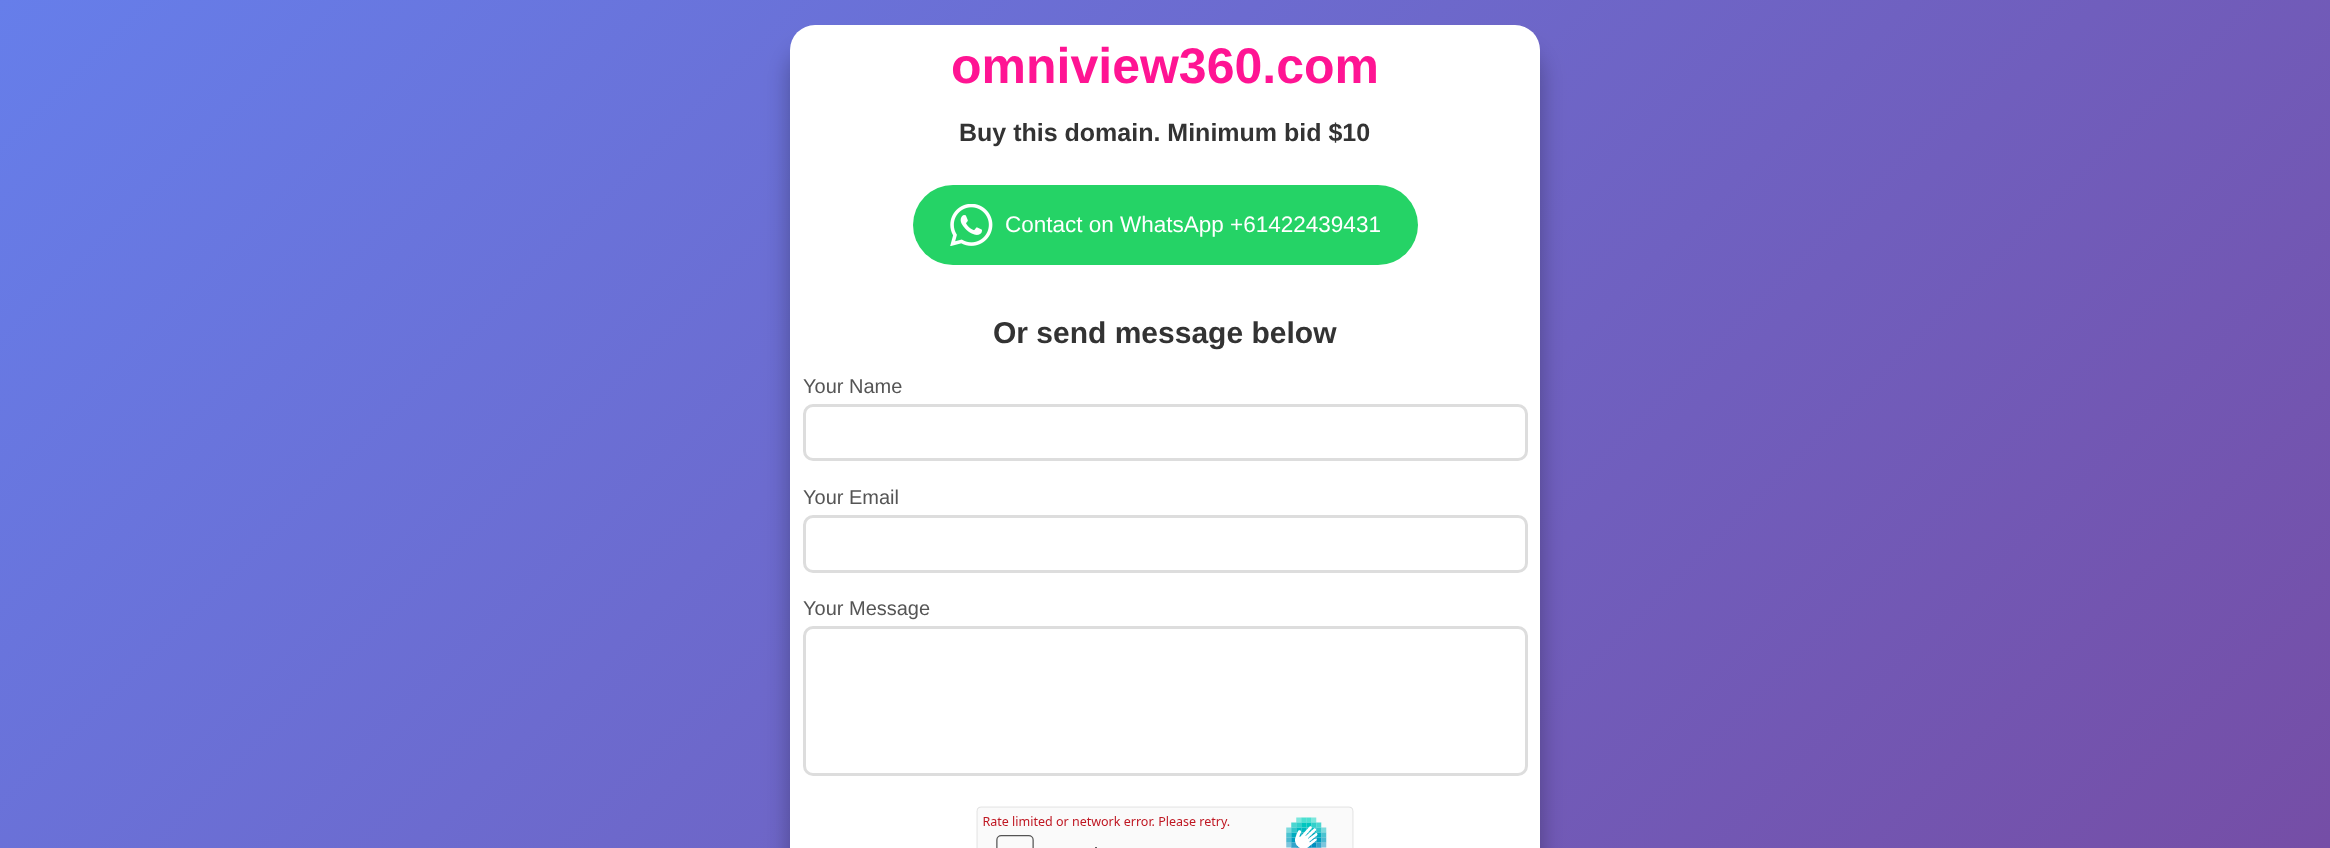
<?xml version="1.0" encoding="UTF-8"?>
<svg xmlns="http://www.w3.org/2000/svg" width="2330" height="848">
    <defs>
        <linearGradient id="g1" gradientUnits="userSpaceOnUse" x1="324" y1="-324" x2="2006" y2="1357"><stop offset="0" stop-color="#667EEA"/><stop offset="1" stop-color="#764BA2"/></linearGradient>
        <filter id="blur1" x="-50%" y="-200%" width="200%" height="500%"><feGaussianBlur stdDeviation="12.5"/></filter>
    </defs>
    <rect width="100%" height="100%" fill="#FFFFFF"/>
    <rect x="0" y="0" width="2330" height="848" fill="url(#g1)"/>
    <rect x="790" y="50" width="750" height="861" rx="25" fill="#000000" fill-opacity="0.3" filter="url(#blur1)"/>
    <rect x="790" y="25" width="750" height="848" rx="25" fill="#FFFFFF"/>
    <text x="951" y="83" font-family="Liberation Sans" font-size="50" font-weight="700" fill="#FF1493">omniview360.com</text>
    <text x="959" y="141" font-family="Liberation Sans" font-size="25" font-weight="700" fill="#333333">Buy this domain. Minimum bid $10</text>
    <rect x="913" y="185" width="505" height="80" rx="40" fill="#25D366"/>
    <image x="950" y="204" width="43" height="42" href="img_01.png"/>
    <text x="1005" y="232" font-family="Liberation Sans" font-size="22.5" fill="#FFFFFF">Contact on WhatsApp +61422439431</text>
    <text x="993" y="343" font-family="Liberation Sans" font-size="30" font-weight="700" fill="#333333">Or send message below</text>
    <text x="803" y="393" font-family="Liberation Sans" font-size="20" fill="#555555">Your Name</text>
    <rect x="804.5" y="405.5" width="722" height="54" rx="8.5" fill="none" stroke="#DDDDDD" stroke-width="3"/>
    <text x="803" y="504" font-family="Liberation Sans" font-size="20" fill="#555555">Your Email</text>
    <rect x="804.5" y="516.5" width="722" height="55" rx="8.5" fill="none" stroke="#DDDDDD" stroke-width="3"/>
    <text x="803" y="615" font-family="Liberation Sans" font-size="20" fill="#555555">Your Message</text>
    <rect x="804.5" y="627.5" width="722" height="147" rx="8.5" fill="none" stroke="#DDDDDD" stroke-width="3"/>
    <image x="976" y="806" width="378" height="42" href="img_02.png"/>
</svg>
